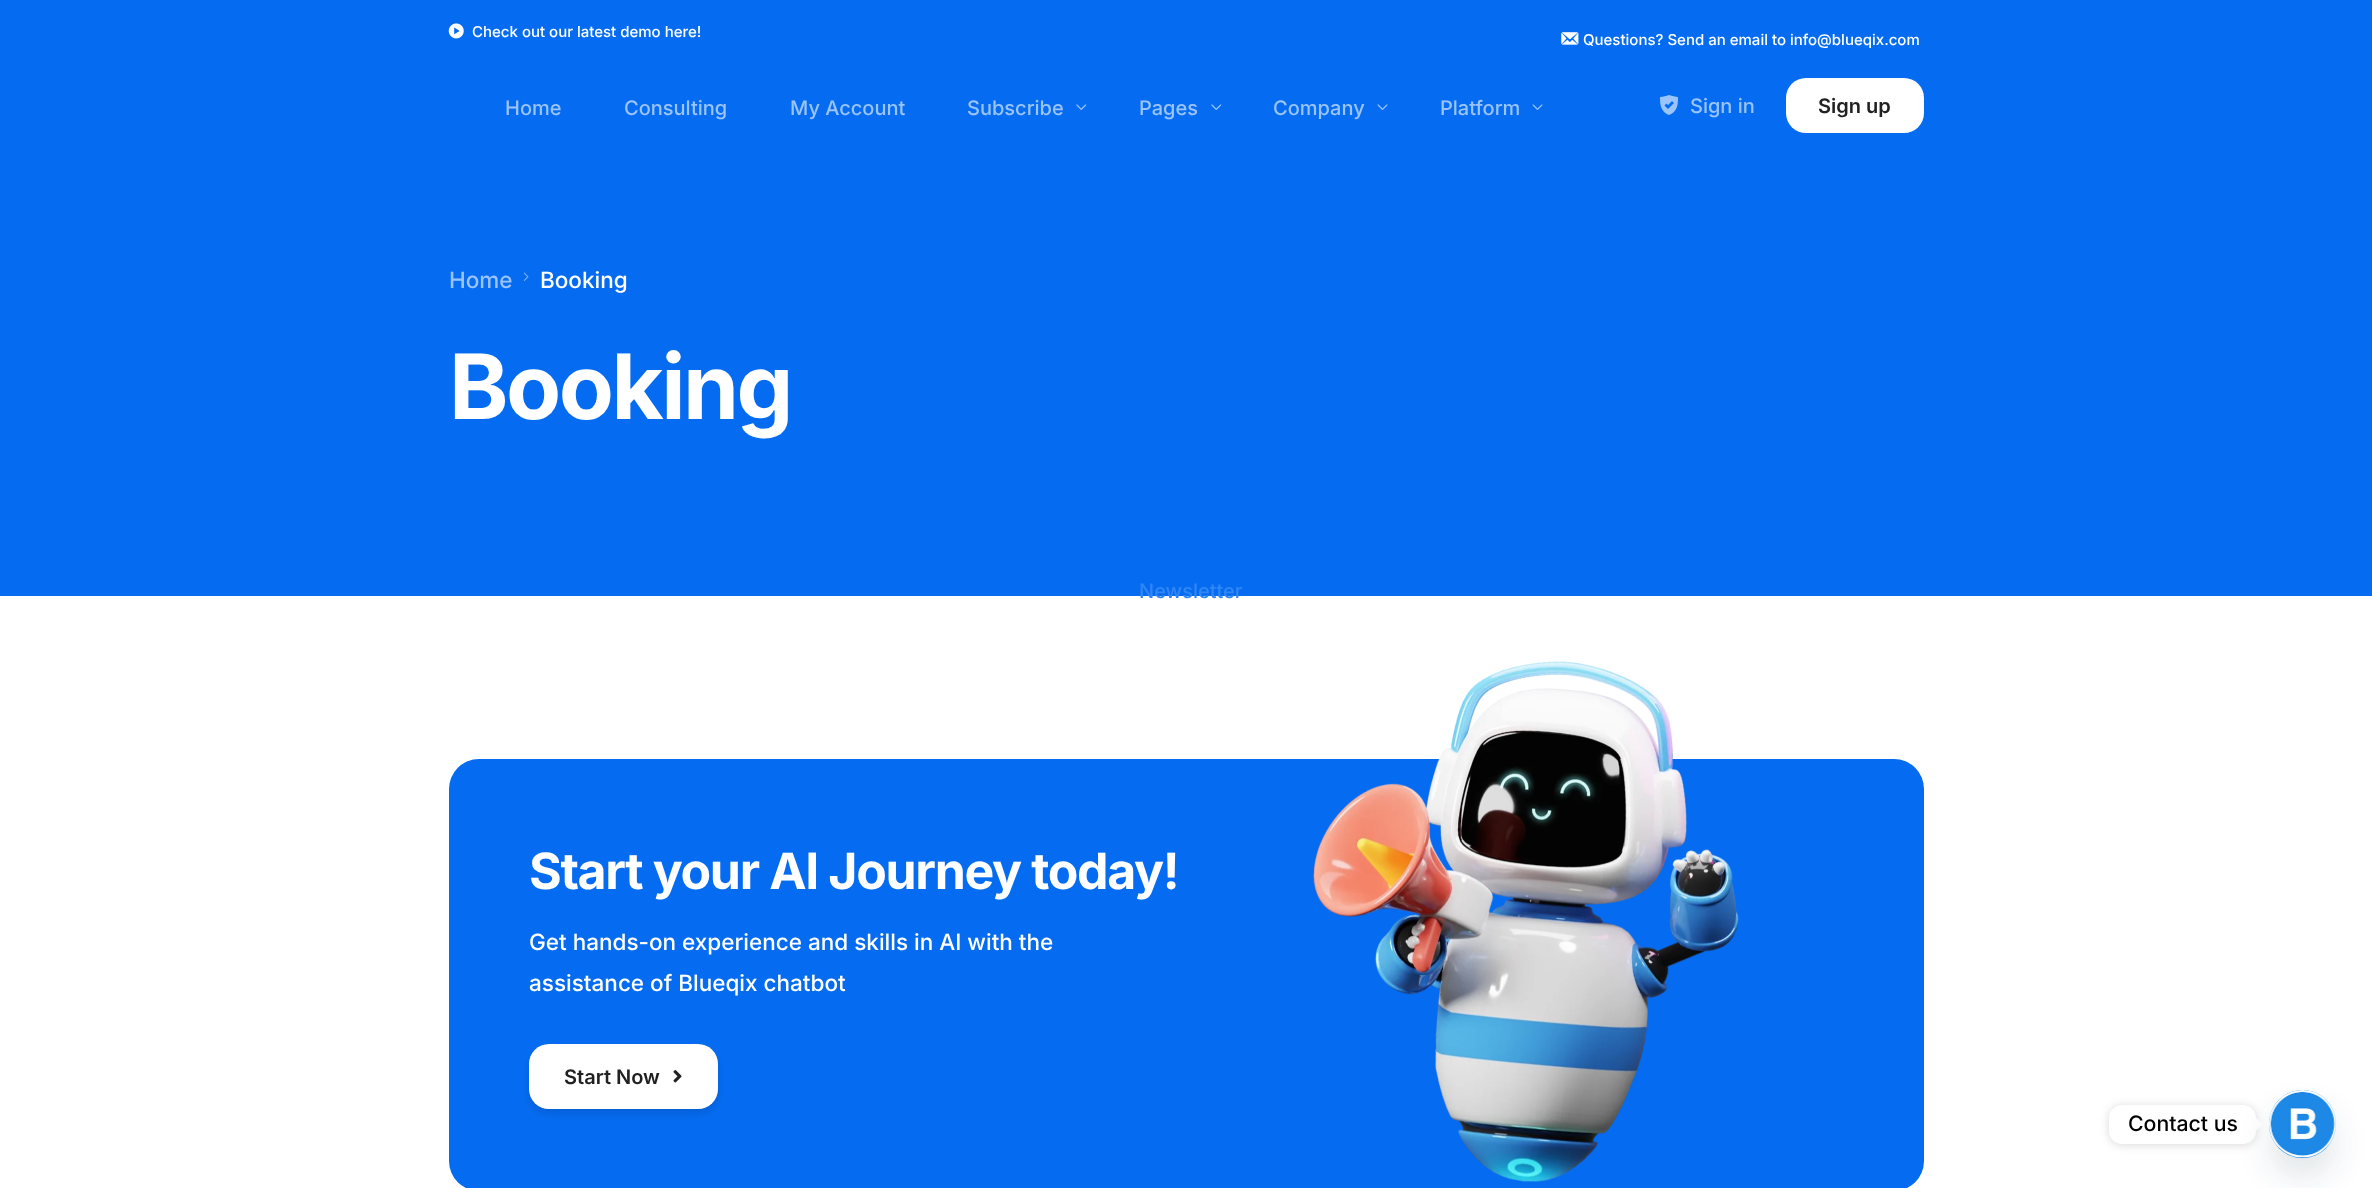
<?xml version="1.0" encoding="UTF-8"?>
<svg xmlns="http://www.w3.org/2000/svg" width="2372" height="1188">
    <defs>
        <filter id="blur1" x="-50%" y="-200%" width="200%" height="500%"><feGaussianBlur stdDeviation="5"/></filter>
        <filter id="blur2" x="-50%" y="-200%" width="200%" height="500%"><feGaussianBlur stdDeviation="15"/></filter>
    </defs>
    <rect width="100%" height="100%" fill="#FFFFFF"/>
    <rect x="0" y="0" width="2372" height="596" fill="#056CF2"/>
    <image x="448" y="23" width="16" height="16" href="img_01.png"/>
    <text x="472" y="37" font-family="Inter" font-size="15" font-weight="500" fill="#FFFFFF">Check out our latest demo here!</text>
    <image x="1561" y="32" width="18" height="13" href="img_02.png"/>
    <text x="1583" y="45" font-family="Inter" font-size="15" font-weight="500" fill="#FFFFFF">Questions? Send an email to info@blueqix.com</text>
    <text x="505" y="115" font-family="Inter" font-size="20" font-weight="500" fill="#9BC4FA">Home</text>
    <text x="624" y="115" font-family="Inter" font-size="20" font-weight="500" fill="#9BC4FA">Consulting</text>
    <text x="790" y="115" font-family="Inter" font-size="20" font-weight="500" fill="#9BC4FA">My Account</text>
    <text x="967" y="115" font-family="Inter" font-size="20" font-weight="500" fill="#9BC4FA">Subscribe</text>
    <image x="1076" y="104" width="11" height="6" href="img_03.png"/>
    <text x="1139" y="115" font-family="Inter" font-size="20" font-weight="500" fill="#9BC4FA">Pages</text>
    <image x="1211" y="104" width="11" height="6" href="img_03.png"/>
    <text x="1139" y="598" font-family="Inter" font-size="20" font-weight="500" fill="#3186F4">Newsletter</text>
    <text x="1273" y="115" font-family="Inter" font-size="20" font-weight="500" fill="#9BC4FA">Company</text>
    <image x="1377" y="104" width="11" height="6" href="img_04.png"/>
    <text x="1440" y="115" font-family="Inter" font-size="20" font-weight="500" fill="#9BC4FA">Platform</text>
    <image x="1532" y="104" width="11" height="6" href="img_04.png"/>
    <image x="1660" y="95" width="18" height="20" href="img_05.png"/>
    <text x="1690" y="113" font-family="Inter" font-size="20" font-weight="500" fill="#9BC4FA">Sign in</text>
    <rect x="1786" y="78" width="138" height="55" rx="20" fill="#FFFFFF"/>
    <text x="1818" y="113" font-family="Inter" font-size="20" font-weight="600" fill="#212121">Sign up</text>
    <text x="449" y="288" font-family="Inter" font-size="22.5" font-weight="500" fill="#9BC4FA">Home</text>
    <image x="523" y="272" width="6" height="9" href="img_06.png"/>
    <text x="540" y="288" font-family="Inter" font-size="22.5" font-weight="500" fill="#FFFFFF">Booking</text>
    <text x="449" y="419" font-family="Inter" font-size="90" font-weight="700" letter-spacing="-2.5" fill="#FFFFFF">Booking</text>
    <rect x="449" y="759" width="1475" height="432" rx="30" fill="#056CF2"/>
    <text x="529" y="889" font-family="Inter" font-size="50" font-weight="700" letter-spacing="-1.35" fill="#FFFFFF">Start your AI Journey today!</text>
    <text font-family="Inter" font-size="22.5" font-weight="500" fill="#FFFFFF">
        <tspan x="529" y="950">Get hands-on experience and skills in AI with the</tspan>
        <tspan x="529" y="991">assistance of Blueqix chatbot</tspan>
    </text>
    <rect x="529" y="1049" width="189" height="65" rx="20" fill="#000000" fill-opacity="0.12" filter="url(#blur1)"/>
    <rect x="529" y="1044" width="189" height="65" rx="20" fill="#FFFFFF"/>
    <text x="564" y="1084" font-family="Inter" font-size="20" font-weight="600" fill="#212121">Start Now</text>
    <image x="673" y="1070" width="9" height="13" href="img_07.png"/>
    <image x="1313" y="661" width="426" height="521" href="img_08.png"/>
    <rect x="2109" y="1106" width="147" height="39" rx="13" fill="#000000" fill-opacity="0.15" filter="url(#blur1)"/>
    <rect x="2109" y="1105" width="147" height="39" rx="13" fill="#FFFFFF"/>
    <text x="2128" y="1131" font-family="Inter" font-size="21.25" font-weight="500" fill="#000000">Contact us</text>
    <path d="M 2256 1130.5 V 1118 L 2262.5 1124.5 Z" fill="#FFFFFF"/>
    <rect x="2269" y="1110" width="67" height="68" rx="33.5" fill="#49687E" fill-opacity="0.16" filter="url(#blur2)"/>
    <rect x="2269" y="1090" width="67" height="68" rx="33.5" fill="#1E88E5"/>
    <image x="2269" y="1090" width="67" height="68" href="img_09.png"/>
</svg>
